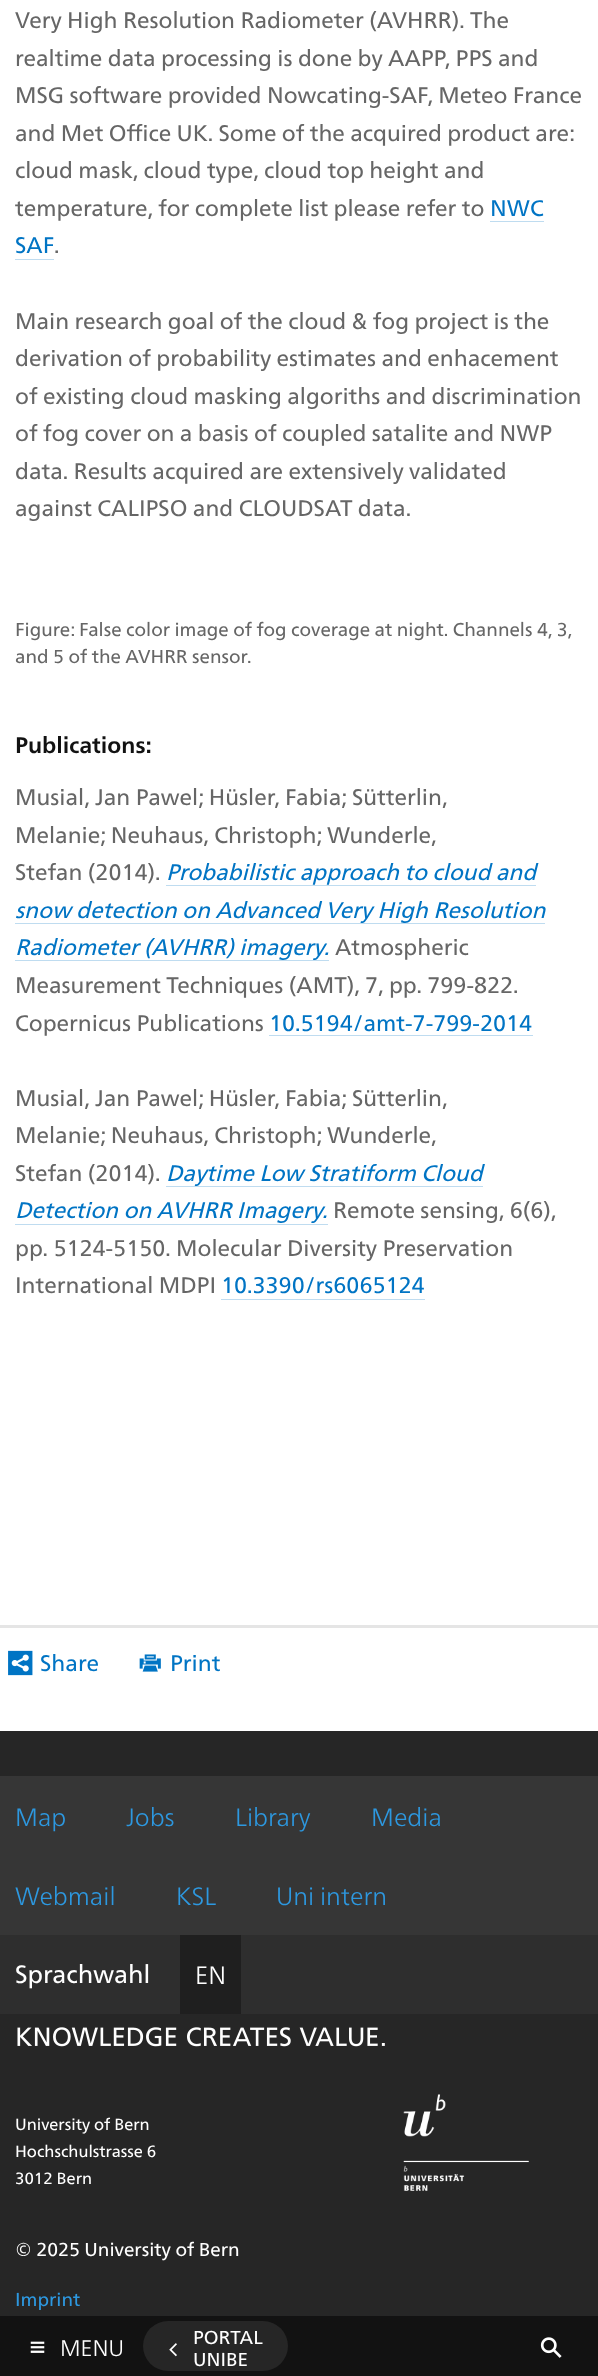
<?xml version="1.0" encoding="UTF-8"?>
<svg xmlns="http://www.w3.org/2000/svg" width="598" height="2376">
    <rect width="100%" height="100%" fill="#FFFFFF"/>
    <text font-family="'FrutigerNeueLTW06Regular'" font-size="22.5" fill="#666666">
        <tspan x="15" y="28">Very High Resolution Radiometer (AVHRR). The</tspan>
        <tspan x="15" y="66">realtime data processing is done by AAPP, PPS and</tspan>
        <tspan x="15" y="103">MSG software provided Nowcating-SAF, Meteo France</tspan>
        <tspan x="15" y="141" word-spacing="-0.1">and Met Office UK. Some of the acquired product are:</tspan>
        <tspan x="15" y="178">cloud mask, cloud type, cloud top height and</tspan>
        <tspan x="15" y="216">temperature, for complete list please refer to</tspan>
    </text>
    <text x="490" y="216" font-family="'FrutigerNeueLTW06Regular'" font-size="22.5" fill="#0074C4">NWC</text>
    <rect x="490" y="221" width="54" height="1" fill="#BFDCF0"/>
    <text x="15" y="253" font-family="'FrutigerNeueLTW06Regular'" font-size="22.5" fill="#0074C4">SAF</text>
    <rect x="15" y="259" width="39" height="1" fill="#BFDCF0"/>
    <text x="54" y="253" font-family="'FrutigerNeueLTW06Regular'" font-size="22.5" fill="#666666">.</text>
    <text font-family="'FrutigerNeueLTW06Regular'" font-size="22.5" fill="#666666">
        <tspan x="15" y="329">Main research goal of the cloud &amp; fog project is the</tspan>
        <tspan x="15" y="366">derivation of probability estimates and enhacement</tspan>
        <tspan x="15" y="404">of existing cloud masking algoriths and discrimination</tspan>
        <tspan x="15" y="441">of fog cover on a basis of coupled satalite and NWP</tspan>
        <tspan x="15" y="479">data. Results acquired are extensively validated</tspan>
        <tspan x="15" y="516">against CALIPSO and CLOUDSAT data.</tspan>
    </text>
    <text font-family="'FrutigerNeueLTW06Regular'" font-size="18.7" fill="#666666">
        <tspan x="15" y="636">Figure: False color image of fog coverage at night. Channels 4, 3,</tspan>
        <tspan x="15" y="663">and 5 of the AVHRR sensor.</tspan>
    </text>
    <text x="15" y="753" font-family="'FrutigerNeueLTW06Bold'" font-size="22.5" font-weight="700" fill="#121212">Publications:</text>
    <text font-family="'FrutigerNeueLTW06Regular'" font-size="22.5" fill="#666666">
        <tspan x="15" y="805">Musial, Jan Pawel; Hüsler, Fabia; Sütterlin,</tspan>
        <tspan x="15" y="843">Melanie; Neuhaus, Christoph; Wunderle,</tspan>
        <tspan x="15" y="880">Stefan (2014).</tspan>
    </text>
    <text x="166" y="880" font-family="'FrutigerNeueLTW06Regular'" font-size="22.5" font-style="italic" fill="#0074C4">Probabilistic approach to cloud and</text>
    <rect x="166" y="885" width="370" height="1" fill="#BFDCF0"/>
    <text x="15" y="918" font-family="'FrutigerNeueLTW06Regular'" font-size="22.5" font-style="italic" fill="#0074C4">snow detection on Advanced Very High Resolution</text>
    <rect x="15" y="923" width="530" height="1" fill="#BFDCF0"/>
    <text x="15" y="955" font-family="'FrutigerNeueLTW06Regular'" font-size="22.5" font-style="italic" fill="#0074C4">Radiometer (AVHRR) imagery.</text>
    <rect x="15" y="960" width="314" height="1" fill="#BFDCF0"/>
    <text x="335" y="955" font-family="'FrutigerNeueLTW06Regular'" font-size="22.5" fill="#666666">Atmospheric</text>
    <text font-family="'FrutigerNeueLTW06Regular'" font-size="22.5" fill="#666666">
        <tspan x="15" y="993">Measurement Techniques (AMT), 7, pp. 799-822.</tspan>
        <tspan x="15" y="1031">Copernicus Publications</tspan>
    </text>
    <text x="269" y="1031" font-family="'FrutigerNeueLTW06Regular'" font-size="22.5" fill="#0074C4">10.5194/amt-7-799-2014</text>
    <rect x="269" y="1035" width="264" height="1" fill="#BFDCF0"/>
    <text font-family="'FrutigerNeueLTW06Regular'" font-size="22.5" fill="#666666">
        <tspan x="15" y="1106">Musial, Jan Pawel; Hüsler, Fabia; Sütterlin,</tspan>
        <tspan x="15" y="1143">Melanie; Neuhaus, Christoph; Wunderle,</tspan>
        <tspan x="15" y="1181">Stefan (2014).</tspan>
    </text>
    <text x="166" y="1181" font-family="'FrutigerNeueLTW06Regular'" font-size="22.5" font-style="italic" fill="#0074C4">Daytime Low Stratiform Cloud</text>
    <rect x="166" y="1186" width="317" height="1" fill="#BFDCF0"/>
    <text x="15" y="1218" font-family="'FrutigerNeueLTW06Regular'" font-size="22.5" font-style="italic" fill="#0074C4">Detection on AVHRR Imagery.</text>
    <rect x="15" y="1224" width="313" height="1" fill="#BFDCF0"/>
    <text x="333" y="1218" font-family="'FrutigerNeueLTW06Regular'" font-size="22.5" fill="#666666">Remote sensing, 6(6),</text>
    <text font-family="'FrutigerNeueLTW06Regular'" font-size="22.5" fill="#666666">
        <tspan x="15" y="1256">pp. 5124-5150. Molecular Diversity Preservation</tspan>
        <tspan x="15" y="1293">International MDPI</tspan>
    </text>
    <text x="221" y="1293" font-family="'FrutigerNeueLTW06Regular'" font-size="22.5" fill="#0074C4">10.3390/rs6065124</text>
    <rect x="221" y="1299" width="204" height="1" fill="#BFDCF0"/>
    <rect x="0" y="1625" width="598" height="3" fill="#E5E5E5"/>
    <image x="8" y="1650" width="25" height="26" href="img_01.png"/>
    <text x="40" y="1671" font-family="'FrutigerNeueLTW06Regular'" font-size="22.5" fill="#0074C4">Share</text>
    <image x="139" y="1654" width="22" height="18" href="img_02.png"/>
    <text x="170" y="1671" font-family="'FrutigerNeueLTW06Regular'" font-size="22.5" fill="#0074C4">Print</text>
    <rect x="0" y="1731" width="598" height="585" fill="#262626"/>
    <rect x="0" y="1776" width="598" height="159" fill="#363636"/>
    <text x="15" y="1826" font-family="'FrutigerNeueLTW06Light'" font-size="25" font-weight="300" fill="#2D98E0">Map</text>
    <text x="126" y="1826" font-family="'FrutigerNeueLTW06Light'" font-size="25" font-weight="300" fill="#2D98E0">Jobs</text>
    <text x="235" y="1826" font-family="'FrutigerNeueLTW06Light'" font-size="25" font-weight="300" fill="#2D98E0">Library</text>
    <text x="371" y="1826" font-family="'FrutigerNeueLTW06Light'" font-size="25" font-weight="300" fill="#2D98E0">Media</text>
    <text x="15" y="1905" font-family="'FrutigerNeueLTW06Light'" font-size="25" font-weight="300" fill="#2D98E0">Webmail</text>
    <text x="176" y="1905" font-family="'FrutigerNeueLTW06Light'" font-size="25" font-weight="300" fill="#2D98E0">KSL</text>
    <text x="276" y="1905" font-family="'FrutigerNeueLTW06Light'" font-size="25" font-weight="300" fill="#2D98E0">Uni intern</text>
    <rect x="0" y="1935" width="598" height="79" fill="#2E2E2E"/>
    <text x="15" y="1983" font-family="'FrutigerNeueLTW06Regular'" font-size="25" fill="#FFFFFF">Sprachwahl</text>
    <rect x="180" y="1935" width="61" height="79" fill="#1F1F1F"/>
    <text x="195" y="1984" font-family="'FrutigerNeueLTW06Light'" font-size="25" font-weight="300" fill="#FFFFFF">EN</text>
    <image x="17" y="2027" width="368" height="20" href="img_03.png"/>
    <text font-family="'FrutigerNeueLTW06Regular'" font-size="16.25" fill="#FFFFFF">
        <tspan x="15" y="2130">University of Bern</tspan>
        <tspan x="15" y="2157">Hochschulstrasse 6</tspan>
        <tspan x="15" y="2184">3012 Bern</tspan>
    </text>
    <image x="403" y="2094" width="126" height="97" href="img_04.png"/>
    <text x="15" y="2256" font-family="'FrutigerNeueLTW06Regular'" font-size="18.75" fill="#FFFFFF">© 2025 University of Bern</text>
    <text x="15" y="2306" font-family="'FrutigerNeueLTW06Regular'" font-size="18.75" fill="#2D98E0">Imprint</text>
    <rect x="0" y="2316" width="598" height="60" fill="#121212"/>
    <image x="30" y="2341" width="15" height="12" href="img_05.png"/>
    <text x="60" y="2356" font-family="'FrutigerNeueLTW06Light'" font-size="22.5" font-weight="300" fill="#FFFFFF">MENU</text>
    <rect x="143" y="2321" width="145" height="50" rx="25" fill="#262626"/>
    <text x="193" y="2344" font-family="'FrutigerNeueLTW06Regular'" font-size="18.75" fill="#FFFFFF">PORTAL</text>
    <image x="169" y="2343" width="8" height="14" href="img_06.png"/>
    <text x="193" y="2366" font-family="'FrutigerNeueLTW06Regular'" font-size="18.75" fill="#FFFFFF">UNIBE</text>
    <image x="540" y="2337" width="22" height="21" href="img_07.png"/>
</svg>
